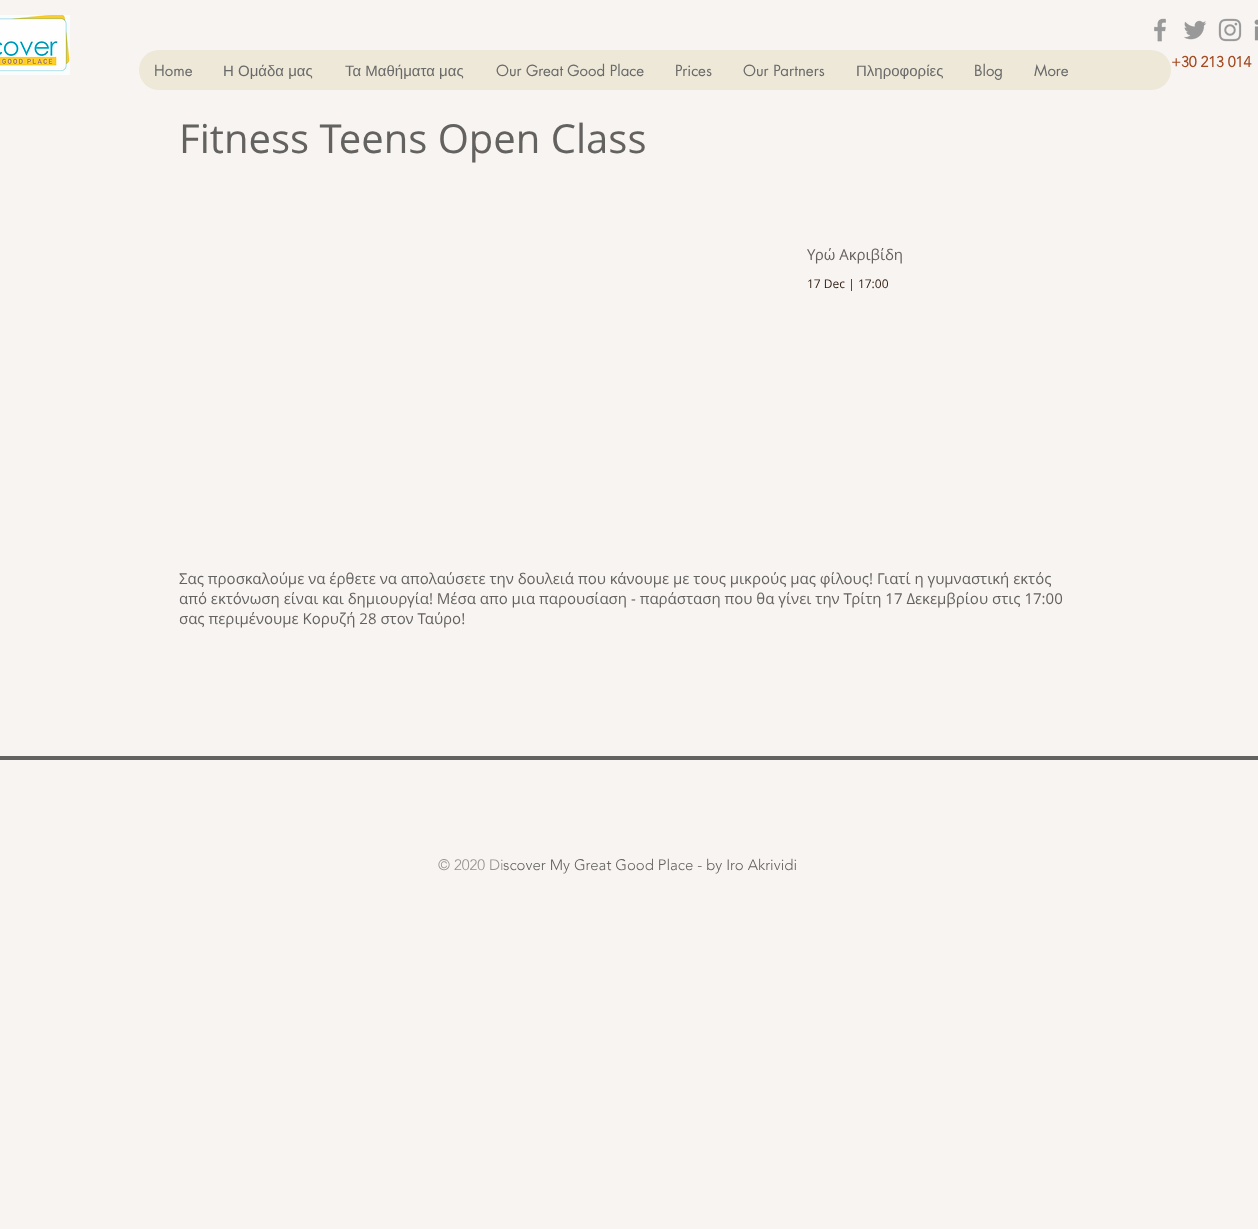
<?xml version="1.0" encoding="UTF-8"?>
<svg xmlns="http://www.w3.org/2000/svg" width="1258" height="1229">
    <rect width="100%" height="100%" fill="#F8F4F1"/>
    <image x="0" y="15" width="70" height="60" href="img_01.png"/>
    <image x="1154" y="18" width="12" height="24" href="img_02.png"/>
    <image x="1184" y="20" width="23" height="20" href="img_03.png"/>
    <image x="1218" y="18" width="24" height="24" href="img_04.png"/>
    <image x="1254" y="19" width="4" height="22" href="img_05.png"/>
    <rect x="139" y="50" width="1032" height="40" rx="20" fill="#EEE8D8"/>
    <text x="154" y="76" font-family="futura" font-size="15" fill="#696969">Home</text>
    <text x="223" y="76" font-family="Liberation Sans" font-size="15" fill="#696969">Η Ομάδα μας</text>
    <text x="345" y="76" font-family="Liberation Sans" font-size="15" fill="#696969">Τα Μαθήματα μας</text>
    <text x="496" y="76" font-family="futura" font-size="15" fill="#696969">Our Great Good Place</text>
    <text x="675" y="76" font-family="futura" font-size="15" fill="#696969">Prices</text>
    <text x="743" y="76" font-family="futura" font-size="15" fill="#696969">Our Partners</text>
    <text x="856" y="76" font-family="Liberation Sans" font-size="15" fill="#696969">Πληροφορίες</text>
    <text x="974" y="76" font-family="futura" font-size="15" fill="#696969">Blog</text>
    <text x="1034" y="76" font-family="futura" font-size="15" fill="#696969">More</text>
    <text x="1171" y="67" font-family="'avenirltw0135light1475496'" font-size="15" font-weight="700" fill="#A34A21">+30 213 014</text>
    <text x="179" y="153" font-family="Open Sans" font-size="40" fill="#636260">Fitness Teens Open Class</text>
    <text x="807" y="260" font-family="Open Sans" font-size="15" fill="#636260">Υρώ Ακριβίδη</text>
    <text x="807" y="288" font-family="Open Sans" font-size="12" fill="#301D10">17 Dec | 17:00</text>
    <text font-family="Open Sans" font-size="15" fill="#636260">
        <tspan x="179" y="584">Σας προσκαλούμε να έρθετε να απολαύσετε την δουλειά που κάνουμε με τους μικρούς μας φίλους! Γιατί η γυμναστική εκτός</tspan>
        <tspan x="179" y="604">από εκτόνωση είναι και δημιουργία! Μέσα απο μια παρουσίαση - παράσταση που θα γίνει την Τρίτη 17 Δεκεμβρίου στις 17:00</tspan>
        <tspan x="179" y="624">σας περιμένουμε Κορυζή 28 στον Ταύρο!</tspan>
    </text>
    <rect x="0" y="756" width="1258" height="4" fill="#636260"/>
    <text x="438" y="870" font-family="'avenirltw0135light1475496'" font-size="15" font-weight="300" fill="#959291">© 2020 Di</text>
    <text x="503" y="870" font-family="'avenirltw0135light1475496'" font-size="15" font-weight="300" fill="#636260">scover My Great Good Place - by Iro Akrividi</text>
</svg>
